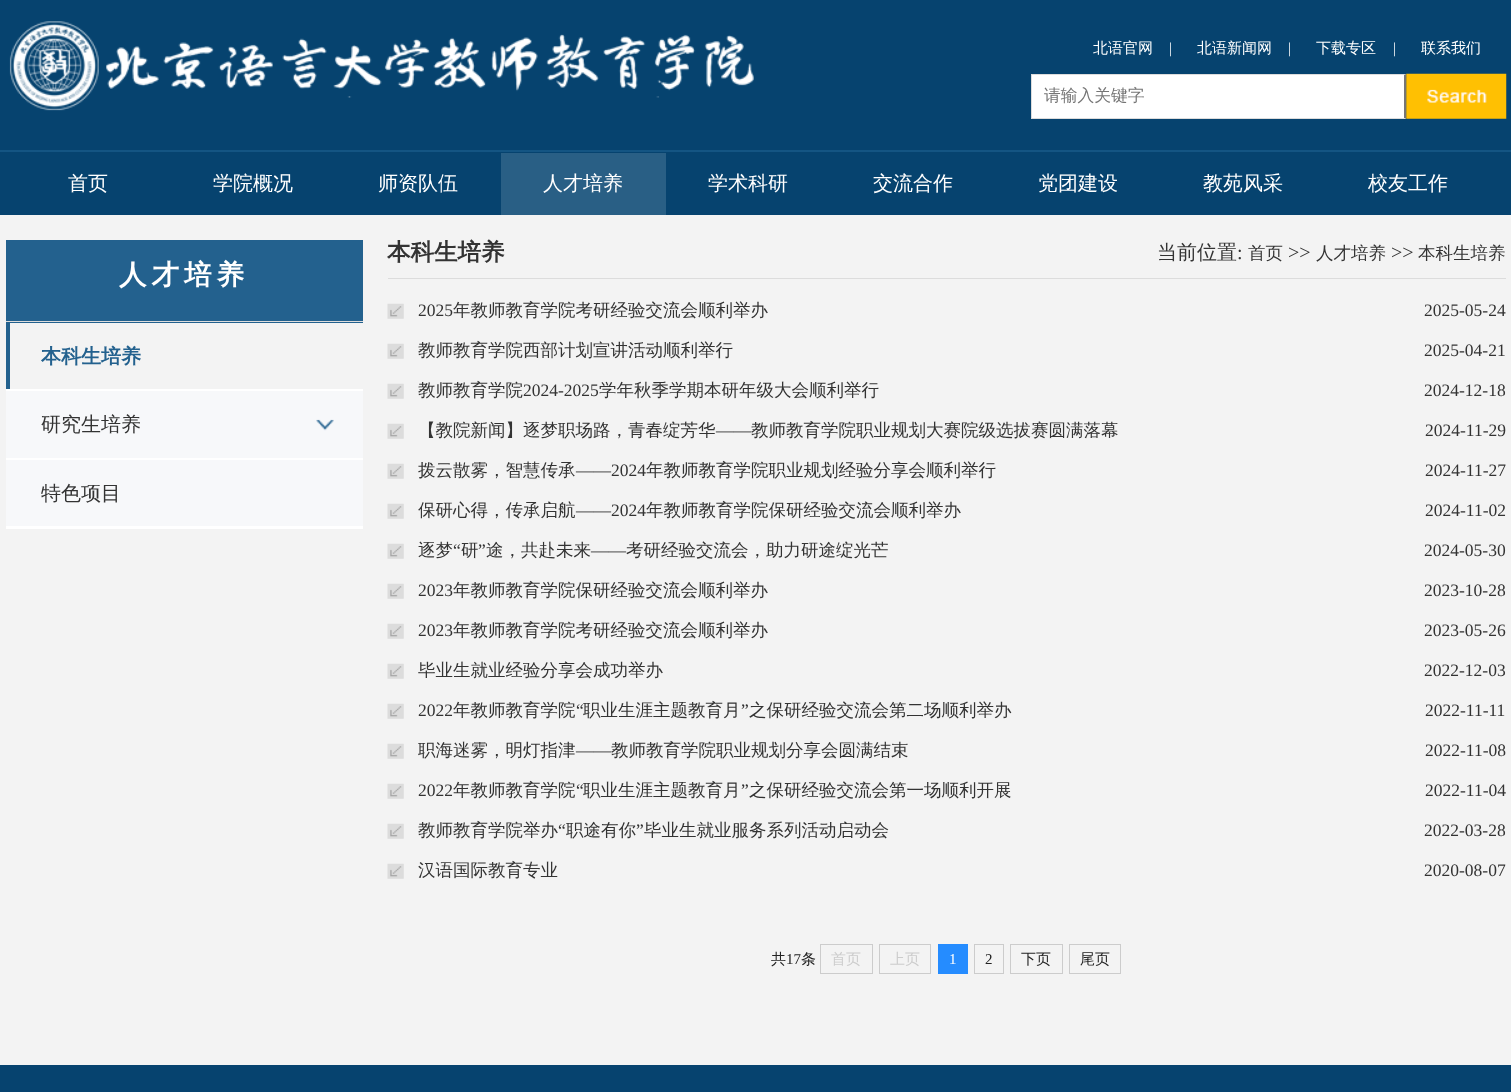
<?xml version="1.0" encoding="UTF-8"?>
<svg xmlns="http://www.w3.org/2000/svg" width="1511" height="1092">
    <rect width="100%" height="100%" fill="#F3F3F3"/>
    <rect x="0" y="0" width="1511" height="150" fill="#06436F"/>
    <rect x="0" y="150" width="1511" height="2" fill="#145583"/>
    <image x="9" y="21" width="745" height="90" href="img_01.png"/>
    <text x="1093" y="53" font-family="WenQuanYi Zen Hei" font-size="15" font-weight="500" fill="#FFFFFF">北语官网</text>
    <text x="1169" y="53" font-family="Liberation Serif" font-size="15" fill="#FFFFFF">|</text>
    <text x="1197" y="53" font-family="WenQuanYi Zen Hei" font-size="15" font-weight="500" fill="#FFFFFF">北语新闻网</text>
    <text x="1288" y="53" font-family="Liberation Serif" font-size="15" fill="#FFFFFF">|</text>
    <text x="1316" y="53" font-family="WenQuanYi Zen Hei" font-size="15" font-weight="500" fill="#FFFFFF">下载专区</text>
    <text x="1393" y="53" font-family="Liberation Serif" font-size="15" fill="#FFFFFF">|</text>
    <text x="1421" y="53" font-family="WenQuanYi Zen Hei" font-size="15" font-weight="500" fill="#FFFFFF">联系我们</text>
    <rect x="1032" y="74" width="374" height="45" fill="#FFFFFF"/>
    <path d="M 1031 74 H 1406 L 1404 75 H 1032 Z" fill="#DCDCDC"/>
    <path d="M 1406 74 V 119 L 1404 118 V 75 Z" fill="#767676"/>
    <path d="M 1406 119 H 1031 L 1032 118 H 1404 Z" fill="#DCDCDC"/>
    <rect x="1031" y="74" width="1" height="45" fill="#DCDCDC"/>
    <text x="1044" y="101" font-family="WenQuanYi Zen Hei" font-size="16.75" font-weight="500" fill="#757575">请输入关键字</text>
    <image x="1406" y="73" width="101" height="46" href="img_02.png"/>
    <rect x="0" y="152" width="1511" height="63" fill="#06436F"/>
    <text x="68" y="190" font-family="WenQuanYi Zen Hei" font-size="20" font-weight="500" fill="#FFFFFF">首页</text>
    <text x="213" y="190" font-family="WenQuanYi Zen Hei" font-size="20" font-weight="500" fill="#FFFFFF">学院概况</text>
    <text x="378" y="190" font-family="WenQuanYi Zen Hei" font-size="20" font-weight="500" fill="#FFFFFF">师资队伍</text>
    <rect x="501" y="153" width="165" height="62" fill="#295F85"/>
    <text x="543" y="190" font-family="WenQuanYi Zen Hei" font-size="20" font-weight="500" fill="#FFFFFF">人才培养</text>
    <text x="708" y="190" font-family="WenQuanYi Zen Hei" font-size="20" font-weight="500" fill="#FFFFFF">学术科研</text>
    <text x="873" y="190" font-family="WenQuanYi Zen Hei" font-size="20" font-weight="500" fill="#FFFFFF">交流合作</text>
    <text x="1038" y="190" font-family="WenQuanYi Zen Hei" font-size="20" font-weight="500" fill="#FFFFFF">党团建设</text>
    <text x="1203" y="190" font-family="WenQuanYi Zen Hei" font-size="20" font-weight="500" fill="#FFFFFF">教苑风采</text>
    <text x="1368" y="190" font-family="WenQuanYi Zen Hei" font-size="20" font-weight="500" fill="#FFFFFF">校友工作</text>
    <rect x="6" y="240" width="357" height="83" fill="#23618E"/>
    <rect x="6" y="321" width="357" height="1" fill="#DDDDDD"/>
    <text x="119" y="284" font-family="WenQuanYi Zen Hei" font-size="27.5" font-weight="700" letter-spacing="5" fill="#FFFFFF">人才培养</text>
    <rect x="6" y="389" width="357" height="2" fill="#FFFFFF"/>
    <rect x="6" y="323" width="4" height="66" fill="#23618E"/>
    <text x="41" y="363" font-family="WenQuanYi Zen Hei" font-size="20" font-weight="700" fill="#23618E">本科生培养</text>
    <rect x="6" y="391" width="357" height="67" fill="#F7F8FA"/>
    <rect x="6" y="458" width="357" height="2" fill="#FFFFFF"/>
    <text x="41" y="431" font-family="WenQuanYi Zen Hei" font-size="20" font-weight="500" fill="#333333">研究生培养</text>
    <image x="316" y="419" width="18" height="12" href="img_03.png"/>
    <rect x="6" y="460" width="357" height="66" fill="#F7F8FA"/>
    <rect x="6" y="526" width="357" height="3" fill="#FFFFFF"/>
    <text x="41" y="500" font-family="WenQuanYi Zen Hei" font-size="20" font-weight="500" fill="#333333">特色项目</text>
    <rect x="388" y="278" width="1118" height="1" fill="#DCDCDC"/>
    <text x="387" y="260" font-family="WenQuanYi Zen Hei" font-size="23.5" font-weight="700" fill="#333333">本科生培养</text>
    <text x="1157" y="259" font-family="WenQuanYi Zen Hei" font-size="20" font-weight="500" fill="#333333">当前位置</text>
    <text x="1237" y="259" font-family="Liberation Serif" font-size="20" fill="#333333">:</text>
    <text x="1248" y="259" font-family="WenQuanYi Zen Hei" font-size="17.5" font-weight="500" fill="#333333">首页</text>
    <text x="1288" y="259" font-family="Liberation Serif" font-size="20" fill="#333333">&gt;&gt;</text>
    <text x="1316" y="259" font-family="WenQuanYi Zen Hei" font-size="17.5" font-weight="500" fill="#333333">人才培养</text>
    <text x="1391" y="259" font-family="Liberation Serif" font-size="20" fill="#333333">&gt;&gt;</text>
    <text x="1418" y="259" font-family="WenQuanYi Zen Hei" font-size="17.5" font-weight="500" fill="#333333">本科生培养</text>
    <image x="387" y="303" width="17" height="16" href="img_04.png"/>
    <text x="418" y="316" font-family="Liberation Serif" font-size="17.5" fill="#333333">2025</text>
    <text x="453" y="316" font-family="WenQuanYi Zen Hei" font-size="17.5" font-weight="500" fill="#333333">年教师教育学院考研经验交流会顺利举办</text>
    <text x="1424" y="316" font-family="Liberation Serif" font-size="17.5" fill="#333333">2025-05-24</text>
    <image x="387" y="343" width="17" height="16" href="img_04.png"/>
    <text x="418" y="356" font-family="WenQuanYi Zen Hei" font-size="17.5" font-weight="500" fill="#333333">教师教育学院西部计划宣讲活动顺利举行</text>
    <text x="1424" y="356" font-family="Liberation Serif" font-size="17.5" fill="#333333">2025-04-21</text>
    <image x="387" y="383" width="17" height="16" href="img_04.png"/>
    <text x="418" y="396" font-family="WenQuanYi Zen Hei" font-size="17.5" font-weight="500" fill="#333333">教师教育学院</text>
    <text x="523" y="396" font-family="Liberation Serif" font-size="17.5" fill="#333333">2024-2025</text>
    <text x="599" y="396" font-family="WenQuanYi Zen Hei" font-size="17.5" font-weight="500" fill="#333333">学年秋季学期本研年级大会顺利举行</text>
    <text x="1424" y="396" font-family="Liberation Serif" font-size="17.5" fill="#333333">2024-12-18</text>
    <image x="387" y="423" width="17" height="16" href="img_04.png"/>
    <text x="418" y="436" font-family="WenQuanYi Zen Hei" font-size="17.5" font-weight="500" fill="#333333">【教院新闻】逐梦职场路，青春绽芳华</text>
    <text x="716" y="436" font-family="Liberation Serif" font-size="17.5" fill="#333333">——</text>
    <text x="751" y="436" font-family="WenQuanYi Zen Hei" font-size="17.5" font-weight="500" fill="#333333">教师教育学院职业规划大赛院级选拔赛圆满落幕</text>
    <text x="1425" y="436" font-family="Liberation Serif" font-size="17.5" fill="#333333">2024-11-29</text>
    <image x="387" y="463" width="17" height="16" href="img_04.png"/>
    <text x="418" y="476" font-family="WenQuanYi Zen Hei" font-size="17.5" font-weight="500" fill="#333333">拨云散雾，智慧传承</text>
    <text x="576" y="476" font-family="Liberation Serif" font-size="17.5" fill="#333333">——2024</text>
    <text x="646" y="476" font-family="WenQuanYi Zen Hei" font-size="17.5" font-weight="500" fill="#333333">年教师教育学院职业规划经验分享会顺利举行</text>
    <text x="1425" y="476" font-family="Liberation Serif" font-size="17.5" fill="#333333">2024-11-27</text>
    <image x="387" y="503" width="17" height="16" href="img_04.png"/>
    <text x="418" y="516" font-family="WenQuanYi Zen Hei" font-size="17.5" font-weight="500" fill="#333333">保研心得，传承启航</text>
    <text x="576" y="516" font-family="Liberation Serif" font-size="17.5" fill="#333333">——2024</text>
    <text x="646" y="516" font-family="WenQuanYi Zen Hei" font-size="17.5" font-weight="500" fill="#333333">年教师教育学院保研经验交流会顺利举办</text>
    <text x="1425" y="516" font-family="Liberation Serif" font-size="17.5" fill="#333333">2024-11-02</text>
    <image x="387" y="543" width="17" height="16" href="img_04.png"/>
    <text x="418" y="556" font-family="WenQuanYi Zen Hei" font-size="17.5" font-weight="500" fill="#333333">逐梦</text>
    <text x="453" y="556" font-family="Liberation Serif" font-size="17.5" fill="#333333">“</text>
    <text x="461" y="556" font-family="WenQuanYi Zen Hei" font-size="17.5" font-weight="500" fill="#333333">研</text>
    <text x="478" y="556" font-family="Liberation Serif" font-size="17.5" fill="#333333">”</text>
    <text x="486" y="556" font-family="WenQuanYi Zen Hei" font-size="17.5" font-weight="500" fill="#333333">途，共赴未来</text>
    <text x="591" y="556" font-family="Liberation Serif" font-size="17.5" fill="#333333">——</text>
    <text x="626" y="556" font-family="WenQuanYi Zen Hei" font-size="17.5" font-weight="500" fill="#333333">考研经验交流会，助力研途绽光芒</text>
    <text x="1424" y="556" font-family="Liberation Serif" font-size="17.5" fill="#333333">2024-05-30</text>
    <image x="387" y="583" width="17" height="16" href="img_05.png"/>
    <text x="418" y="596" font-family="Liberation Serif" font-size="17.5" fill="#333333">2023</text>
    <text x="453" y="596" font-family="WenQuanYi Zen Hei" font-size="17.5" font-weight="500" fill="#333333">年教师教育学院保研经验交流会顺利举办</text>
    <text x="1424" y="596" font-family="Liberation Serif" font-size="17.5" fill="#333333">2023-10-28</text>
    <image x="387" y="623" width="17" height="16" href="img_04.png"/>
    <text x="418" y="636" font-family="Liberation Serif" font-size="17.5" fill="#333333">2023</text>
    <text x="453" y="636" font-family="WenQuanYi Zen Hei" font-size="17.5" font-weight="500" fill="#333333">年教师教育学院考研经验交流会顺利举办</text>
    <text x="1424" y="636" font-family="Liberation Serif" font-size="17.5" fill="#333333">2023-05-26</text>
    <image x="387" y="663" width="17" height="16" href="img_04.png"/>
    <text x="418" y="676" font-family="WenQuanYi Zen Hei" font-size="17.5" font-weight="500" fill="#333333">毕业生就业经验分享会成功举办</text>
    <text x="1424" y="676" font-family="Liberation Serif" font-size="17.5" fill="#333333">2022-12-03</text>
    <image x="387" y="703" width="17" height="16" href="img_04.png"/>
    <text x="418" y="716" font-family="Liberation Serif" font-size="17.5" fill="#333333">2022</text>
    <text x="453" y="716" font-family="WenQuanYi Zen Hei" font-size="17.5" font-weight="500" fill="#333333">年教师教育学院</text>
    <text x="576" y="716" font-family="Liberation Serif" font-size="17.5" fill="#333333">“</text>
    <text x="583" y="716" font-family="WenQuanYi Zen Hei" font-size="17.5" font-weight="500" fill="#333333">职业生涯主题教育月</text>
    <text x="741" y="716" font-family="Liberation Serif" font-size="17.5" fill="#333333">”</text>
    <text x="749" y="716" font-family="WenQuanYi Zen Hei" font-size="17.5" font-weight="500" fill="#333333">之保研经验交流会第二场顺利举办</text>
    <text x="1425" y="716" font-family="Liberation Serif" font-size="17.5" fill="#333333">2022-11-11</text>
    <image x="387" y="743" width="17" height="16" href="img_04.png"/>
    <text x="418" y="756" font-family="WenQuanYi Zen Hei" font-size="17.5" font-weight="500" fill="#333333">职海迷雾，明灯指津</text>
    <text x="576" y="756" font-family="Liberation Serif" font-size="17.5" fill="#333333">——</text>
    <text x="611" y="756" font-family="WenQuanYi Zen Hei" font-size="17.5" font-weight="500" fill="#333333">教师教育学院职业规划分享会圆满结束</text>
    <text x="1425" y="756" font-family="Liberation Serif" font-size="17.5" fill="#333333">2022-11-08</text>
    <image x="387" y="783" width="17" height="16" href="img_04.png"/>
    <text x="418" y="796" font-family="Liberation Serif" font-size="17.5" fill="#333333">2022</text>
    <text x="453" y="796" font-family="WenQuanYi Zen Hei" font-size="17.5" font-weight="500" fill="#333333">年教师教育学院</text>
    <text x="576" y="796" font-family="Liberation Serif" font-size="17.5" fill="#333333">“</text>
    <text x="583" y="796" font-family="WenQuanYi Zen Hei" font-size="17.5" font-weight="500" fill="#333333">职业生涯主题教育月</text>
    <text x="741" y="796" font-family="Liberation Serif" font-size="17.5" fill="#333333">”</text>
    <text x="749" y="796" font-family="WenQuanYi Zen Hei" font-size="17.5" font-weight="500" fill="#333333">之保研经验交流会第一场顺利开展</text>
    <text x="1425" y="796" font-family="Liberation Serif" font-size="17.5" fill="#333333">2022-11-04</text>
    <image x="387" y="823" width="17" height="16" href="img_04.png"/>
    <text x="418" y="836" font-family="WenQuanYi Zen Hei" font-size="17.5" font-weight="500" fill="#333333">教师教育学院举办</text>
    <text x="558" y="836" font-family="Liberation Serif" font-size="17.5" fill="#333333">“</text>
    <text x="566" y="836" font-family="WenQuanYi Zen Hei" font-size="17.5" font-weight="500" fill="#333333">职途有你</text>
    <text x="636" y="836" font-family="Liberation Serif" font-size="17.5" fill="#333333">”</text>
    <text x="644" y="836" font-family="WenQuanYi Zen Hei" font-size="17.5" font-weight="500" fill="#333333">毕业生就业服务系列活动启动会</text>
    <text x="1424" y="836" font-family="Liberation Serif" font-size="17.5" fill="#333333">2022-03-28</text>
    <image x="387" y="863" width="17" height="16" href="img_04.png"/>
    <text x="418" y="876" font-family="WenQuanYi Zen Hei" font-size="17.5" font-weight="500" fill="#333333">汉语国际教育专业</text>
    <text x="1424" y="876" font-family="Liberation Serif" font-size="17.5" fill="#333333">2020-08-07</text>
    <text x="771" y="964" font-family="WenQuanYi Zen Hei" font-size="15" font-weight="500" fill="#222222">共</text>
    <text x="786" y="964" font-family="Liberation Serif" font-size="15" fill="#222222">17</text>
    <text x="801" y="964" font-family="WenQuanYi Zen Hei" font-size="15" font-weight="500" fill="#222222">条</text>
    <rect x="820.5" y="944.5" width="52" height="29" fill="none" stroke="#CCCCCC"/>
    <text x="831" y="964" font-family="WenQuanYi Zen Hei" font-size="15" font-weight="500" fill="#CCCCCC">首页</text>
    <rect x="879.5" y="944.5" width="51" height="29" fill="none" stroke="#CCCCCC"/>
    <text x="890" y="964" font-family="WenQuanYi Zen Hei" font-size="15" font-weight="500" fill="#CCCCCC">上页</text>
    <rect x="938" y="944" width="30" height="30" fill="#258CFF"/>
    <text x="949" y="964" font-family="Liberation Serif" font-size="15" fill="#FFFFFF">1</text>
    <rect x="974.5" y="944.5" width="29" height="29" fill="none" stroke="#CCCCCC"/>
    <text x="985" y="964" font-family="Liberation Serif" font-size="15" fill="#222222">2</text>
    <rect x="1010.5" y="944.5" width="52" height="29" fill="none" stroke="#CCCCCC"/>
    <text x="1021" y="964" font-family="WenQuanYi Zen Hei" font-size="15" font-weight="500" fill="#222222">下页</text>
    <rect x="1069.5" y="944.5" width="51" height="29" fill="none" stroke="#CCCCCC"/>
    <text x="1080" y="964" font-family="WenQuanYi Zen Hei" font-size="15" font-weight="500" fill="#222222">尾页</text>
    <rect x="0" y="1065" width="1511" height="27" fill="#06436F"/>
</svg>
